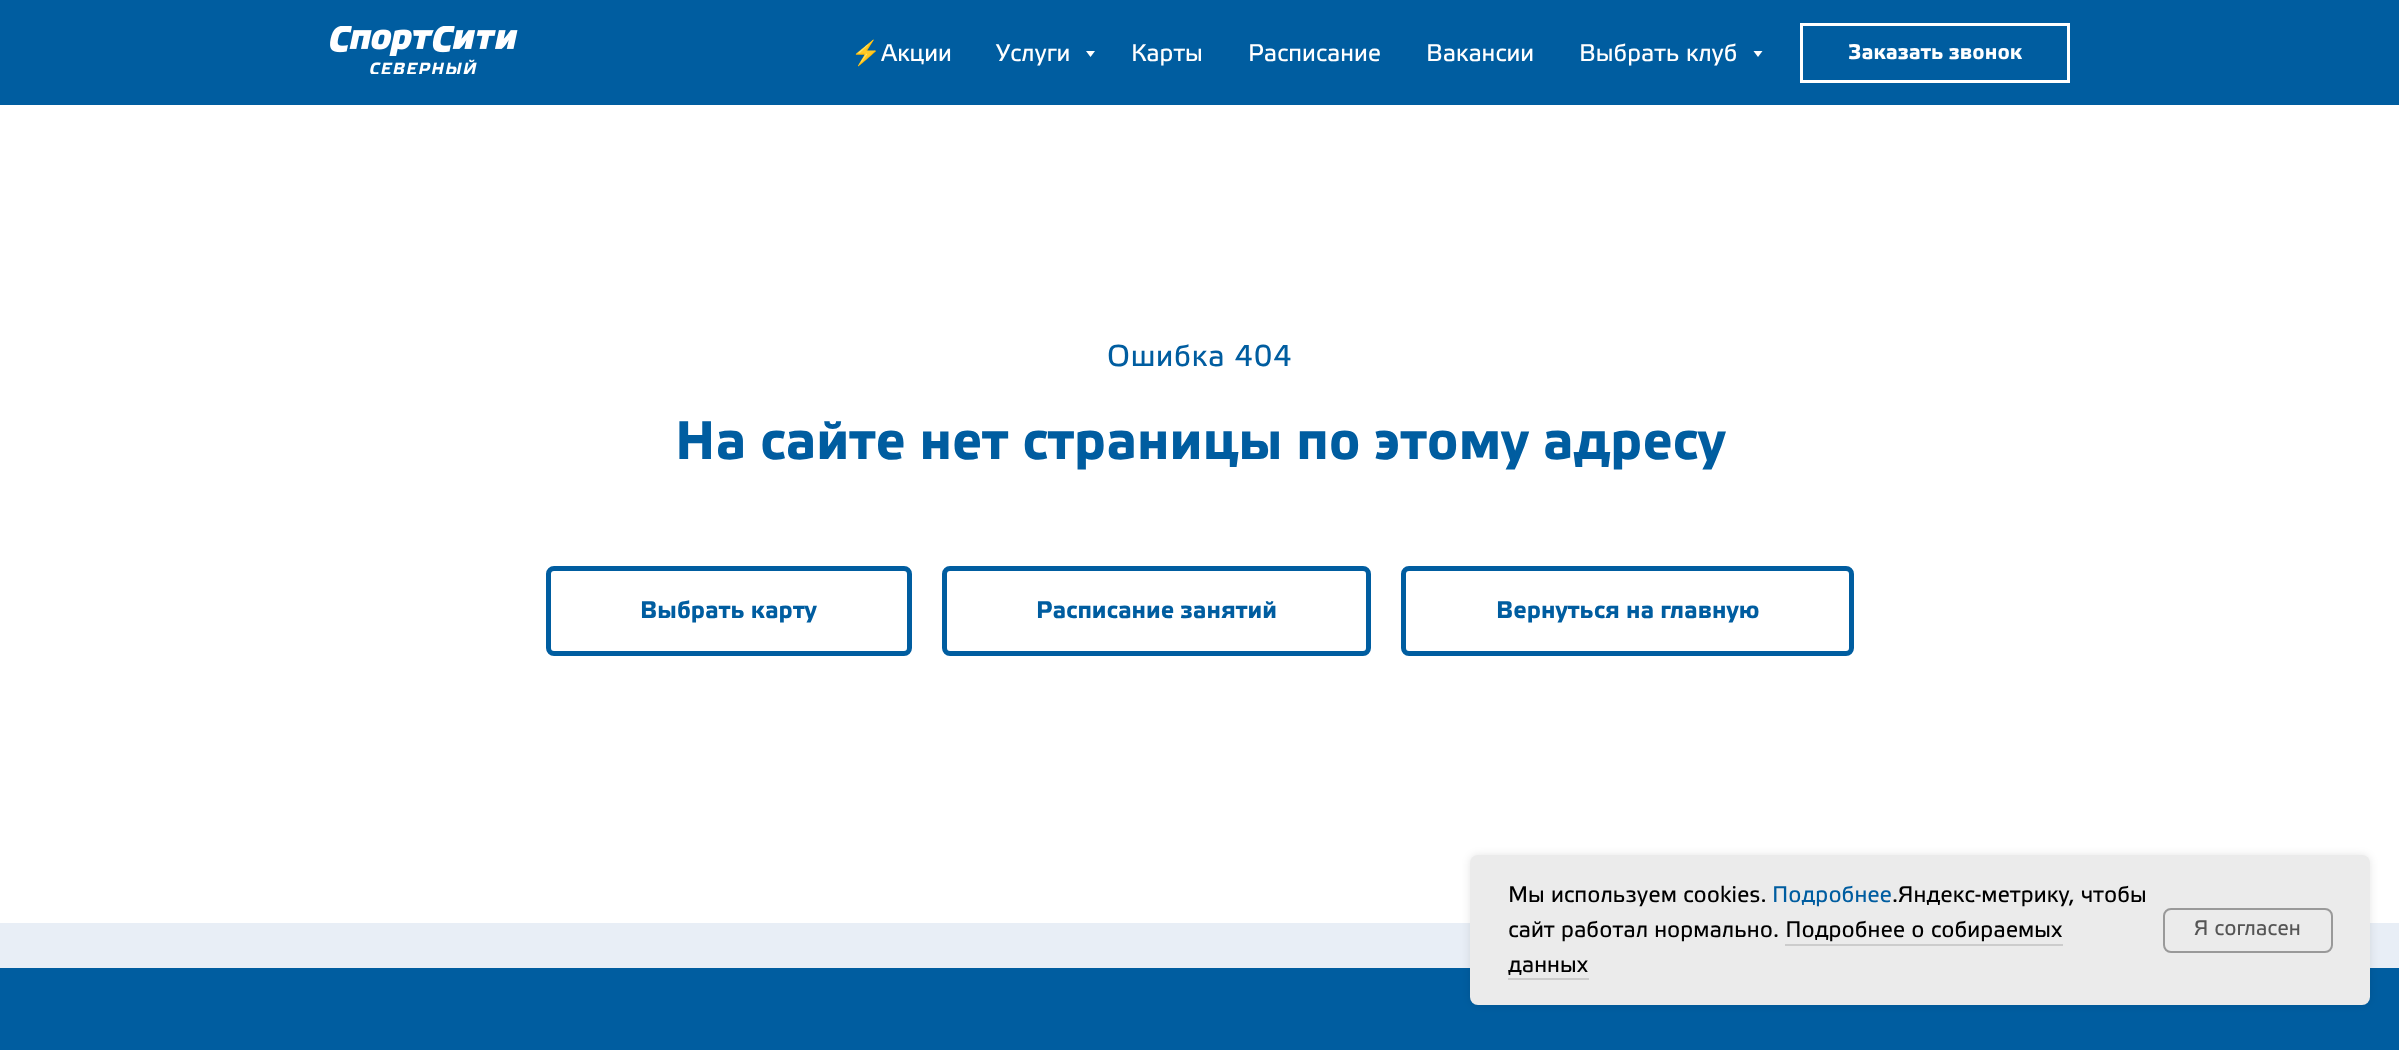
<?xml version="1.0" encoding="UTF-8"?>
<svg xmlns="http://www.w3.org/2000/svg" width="2399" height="1050">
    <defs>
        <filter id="blur1" x="-50%" y="-200%" width="200%" height="500%"><feGaussianBlur stdDeviation="4"/></filter>
    </defs>
    <rect width="100%" height="100%" fill="#FFFFFF"/>
    <rect x="0" y="0" width="2399" height="105" fill="#005DA0"/>
    <image x="330" y="26" width="188" height="48" href="img_01.png"/>
    <text x="851" y="61" font-family="Noto Color Emoji" font-size="24" fill="#FFFFFF">⚡</text>
    <text x="881" y="61" font-family="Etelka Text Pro" font-size="24" fill="#FFFFFF">Акции</text>
    <text x="996" y="61" font-family="Etelka Text Pro" font-size="24" fill="#FFFFFF">Услуги</text>
    <path d="M 1086 51 H 1095 L 1090.5 57 Z" fill="#FFFFFF"/>
    <text x="1131" y="61" font-family="Etelka Text Pro" font-size="24" fill="#FFFFFF">Карты</text>
    <text x="1248" y="61" font-family="Etelka Text Pro" font-size="24" fill="#FFFFFF">Расписание</text>
    <text x="1426" y="61" font-family="Etelka Text Pro" font-size="24" fill="#FFFFFF">Вакансии</text>
    <text x="1579" y="61" font-family="Etelka Text Pro" font-size="24" fill="#FFFFFF">Выбрать клуб</text>
    <path d="M 1753.5 51 H 1762.5 L 1758 57 Z" fill="#FFFFFF"/>
    <rect x="1801.5" y="24.5" width="267" height="57" fill="none" stroke="#FFFFFF" stroke-width="3"/>
    <text x="1848" y="59" font-family="Etelka Text Pro" font-size="21" font-weight="700" fill="#FFFFFF">Заказать звонок</text>
    <text x="1107" y="366" font-family="Etelka Text Pro" font-size="30" letter-spacing="0.75" fill="#005DA0">Ошибка 404</text>
    <text x="675" y="459" font-family="Etelka Text Pro" font-size="54" font-weight="700" fill="#005DA0">На сайте нет страницы по этому адресу</text>
    <rect x="548.5" y="568.5" width="361" height="85" rx="5.5" fill="none" stroke="#005DA0" stroke-width="5"/>
    <text x="640" y="618" font-family="Etelka Text Pro" font-size="24" font-weight="700" fill="#005DA0">Выбрать карту</text>
    <rect x="944.5" y="568.5" width="424" height="85" rx="5.5" fill="none" stroke="#005DA0" stroke-width="5"/>
    <text x="1036" y="618" font-family="Etelka Text Pro" font-size="24" font-weight="700" fill="#005DA0">Расписание занятий</text>
    <rect x="1403.5" y="568.5" width="448" height="85" rx="5.5" fill="none" stroke="#005DA0" stroke-width="5"/>
    <text x="1496" y="618" font-family="Etelka Text Pro" font-size="24" font-weight="700" fill="#005DA0">Вернуться на главную</text>
    <rect x="0" y="923" width="2399" height="45" fill="#E8EEF6"/>
    <rect x="0" y="968" width="2399" height="82" fill="#005DA0"/>
    <rect x="1470" y="855" width="900" height="150" rx="8" fill="#000000" fill-opacity="0.1" filter="url(#blur1)"/>
    <rect x="1470" y="855" width="900" height="150" rx="8" fill="#EBEBEB"/>
    <text x="1508" y="902" font-family="Etelka Text Pro" font-size="22.5" fill="#000000">Мы используем сookies.</text>
    <text x="1772" y="902" font-family="Etelka Text Pro" font-size="22.5" fill="#005DA0">Подробнее</text>
    <text x="1892" y="902" font-family="Etelka Text Pro" font-size="22.5" fill="#000000">.Яндекс-метрику, чтобы</text>
    <text font-family="Etelka Text Pro" font-size="22.5" fill="#000000">
        <tspan x="1508" y="937">сайт работал нормально. Подробнее о собираемых</tspan>
        <tspan x="1508" y="972">данных</tspan>
    </text>
    <rect x="1785" y="944" width="278" height="2" fill="#CCCCCC"/>
    <rect x="1508" y="978" width="81" height="2" fill="#CCCCCC"/>
    <rect x="2164" y="909" width="168" height="43" rx="7" fill="none" stroke="#999999" stroke-width="2"/>
    <text x="2194" y="935" font-family="Etelka Text Pro" font-size="21" fill="#555555">Я согласен</text>
</svg>
